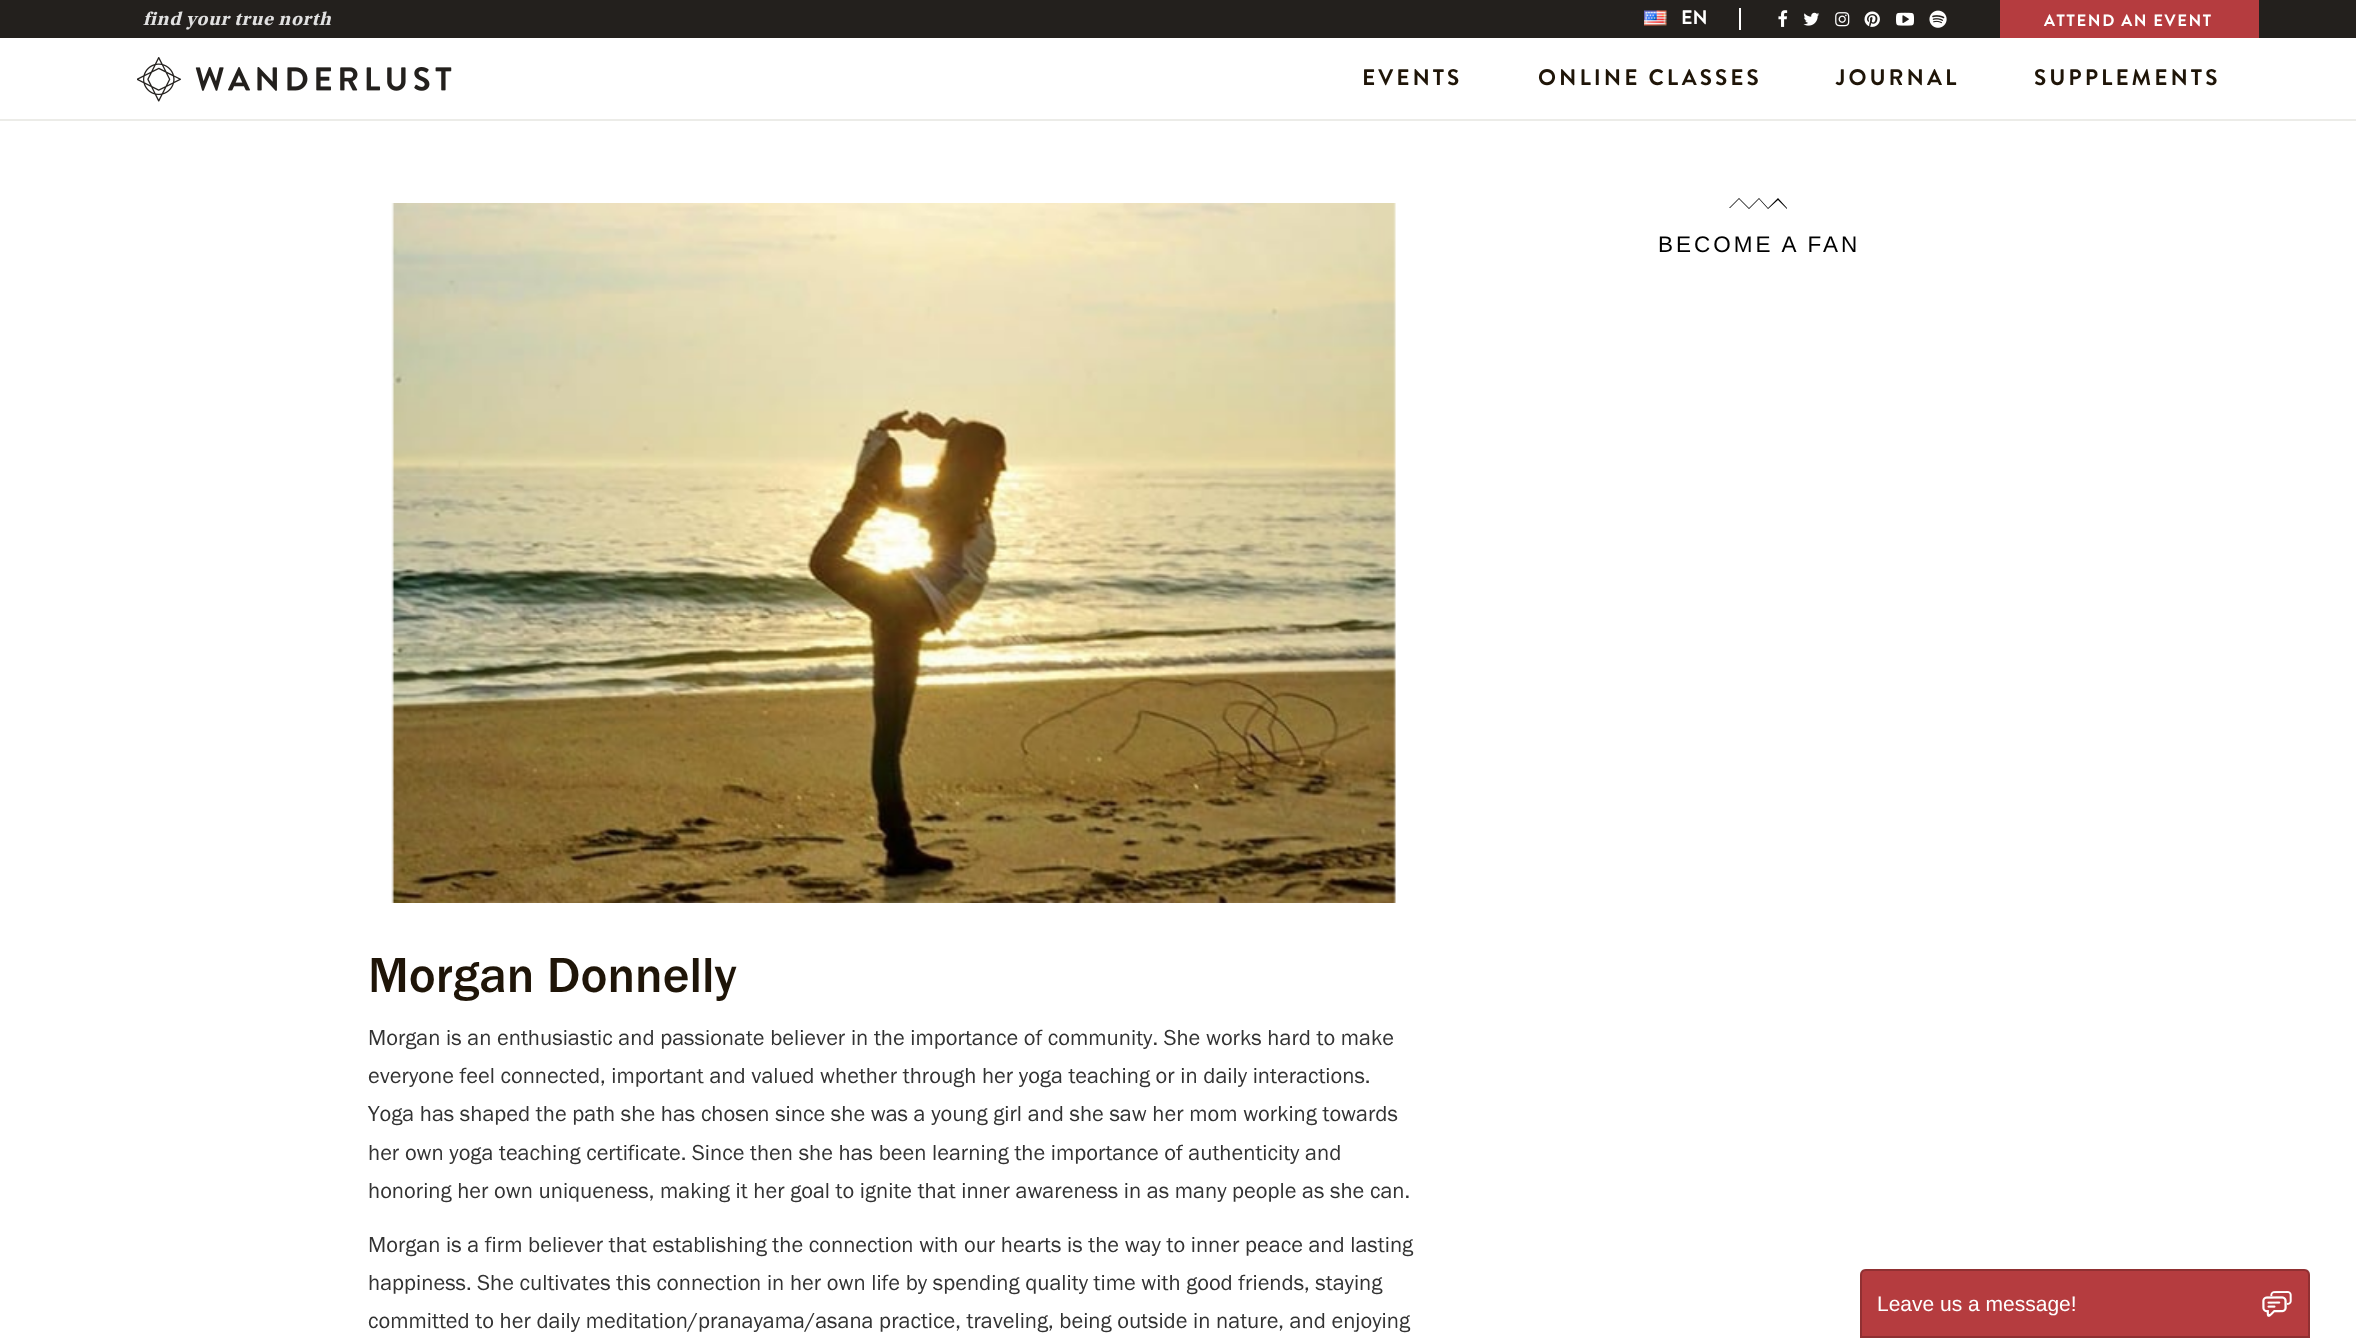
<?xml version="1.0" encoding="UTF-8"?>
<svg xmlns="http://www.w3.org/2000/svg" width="2356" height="1338">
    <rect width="100%" height="100%" fill="#FFFFFF"/>
    <rect x="0" y="0" width="2356" height="38" fill="#23201D"/>
    <text x="143" y="25" font-family="Utopia" font-size="19.5" font-weight="700" font-style="italic" letter-spacing="0.75" fill="#E1E1E1">find your true north</text>
    <image x="1644" y="10" width="23" height="16" href="img_01.png"/>
    <text x="1681" y="24" font-family="Brandon Grotesque" font-size="19.5" font-weight="700" fill="#FFFFFF">EN</text>
    <rect x="1739" y="8" width="2" height="22" fill="#FFFFFF"/>
    <image x="1778" y="10" width="10" height="17" href="img_02.png"/>
    <image x="1803" y="12" width="17" height="14" href="img_03.png"/>
    <image x="1835" y="12" width="15" height="15" href="img_04.png"/>
    <image x="1864" y="11" width="16" height="16" href="img_05.png"/>
    <image x="1896" y="12" width="18" height="14" href="img_06.png"/>
    <image x="1929" y="10" width="18" height="18" href="img_07.png"/>
    <rect x="2000" y="0" width="259" height="38" fill="#B53C3F"/>
    <text x="2044" y="26" font-family="Brandon Grotesque" font-size="16.5" font-weight="700" letter-spacing="1.6" fill="#FFFFFF">ATTEND AN EVENT</text>
    <rect x="0" y="119" width="2356" height="2" fill="#ECECE8"/>
    <image x="137" y="57" width="315" height="45" href="img_08.png"/>
    <text x="1362" y="85" font-family="Brandon Grotesque" font-size="22.5" font-weight="700" letter-spacing="3" fill="#1F1508">EVENTS</text>
    <text x="1538" y="85" font-family="Brandon Grotesque" font-size="22.5" font-weight="700" letter-spacing="3" fill="#1F1508">ONLINE CLASSES</text>
    <text x="1836" y="85" font-family="Brandon Grotesque" font-size="22.5" font-weight="700" letter-spacing="3" fill="#1F1508">JOURNAL</text>
    <text x="2034" y="85" font-family="Brandon Grotesque" font-size="22.5" font-weight="700" letter-spacing="3" fill="#1F1508">SUPPLEMENTS</text>
    <path d="M 1768 209 L 1759 199 L 1749 209 L 1739 199 L 1730 208 H 1729 L 1739 198 L 1749 208 L 1759 198 L 1768 208 L 1778 198 L 1787 208 V 209 L 1778 200 Z" fill="#000000"/>
    <text x="1658" y="252" font-family="Liberation Sans" font-size="22.5" letter-spacing="3" fill="#000000">BECOME A FAN</text>
    <image x="391" y="203" width="1005" height="700" href="img_09.png"/>
    <text x="368" y="992" font-family="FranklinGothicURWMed" font-size="51" fill="#1F1508">Morgan Donnelly</text>
    <text font-family="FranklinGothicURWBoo" font-size="22.5" fill="#333333">
        <tspan x="368" y="1045">Morgan is an enthusiastic and passionate believer in the importance of community. She works hard to make</tspan>
        <tspan x="368" y="1083">everyone feel connected, important and valued whether through her yoga teaching or in daily interactions.</tspan>
        <tspan x="368" y="1121">Yoga has shaped the path she has chosen since she was a young girl and she saw her mom working towards</tspan>
        <tspan x="368" y="1160">her own yoga teaching certificate. Since then she has been learning the importance of authenticity and</tspan>
        <tspan x="368" y="1198">honoring her own uniqueness, making it her goal to ignite that inner awareness in as many people as she can.</tspan>
    </text>
    <text font-family="FranklinGothicURWBoo" font-size="22.5" fill="#333333">
        <tspan x="368" y="1252">Morgan is a firm believer that establishing the connection with our hearts is the way to inner peace and lasting</tspan>
        <tspan x="368" y="1290">happiness. She cultivates this connection in her own life by spending quality time with good friends, staying</tspan>
        <tspan x="368" y="1328">committed to her daily meditation/pranayama/asana practice, traveling, being outside in nature, and enjoying</tspan>
    </text>
    <path d="M 1866 1269 H 2304 C 2307.5 1269 2310 1271.5 2310 1275 V 1338 H 1860 V 1275 C 1860 1271.5 1862.5 1269 1866 1269 Z" fill="#B53C3F"/>
    <image x="2262" y="1291" width="30" height="26" href="img_10.png"/>
    <path d="M 1866 1270 H 2304 C 2307 1270 2309 1272 2309 1275 V 1337 H 1861 V 1275 C 1861 1272 1863 1270 1866 1270 Z" fill="none" stroke="#000000" stroke-opacity="0.2" stroke-width="2"/>
    <text x="1877" y="1311" font-family="Liberation Sans" font-size="21" fill="#FFFFFF">Leave us a message!</text>
</svg>
